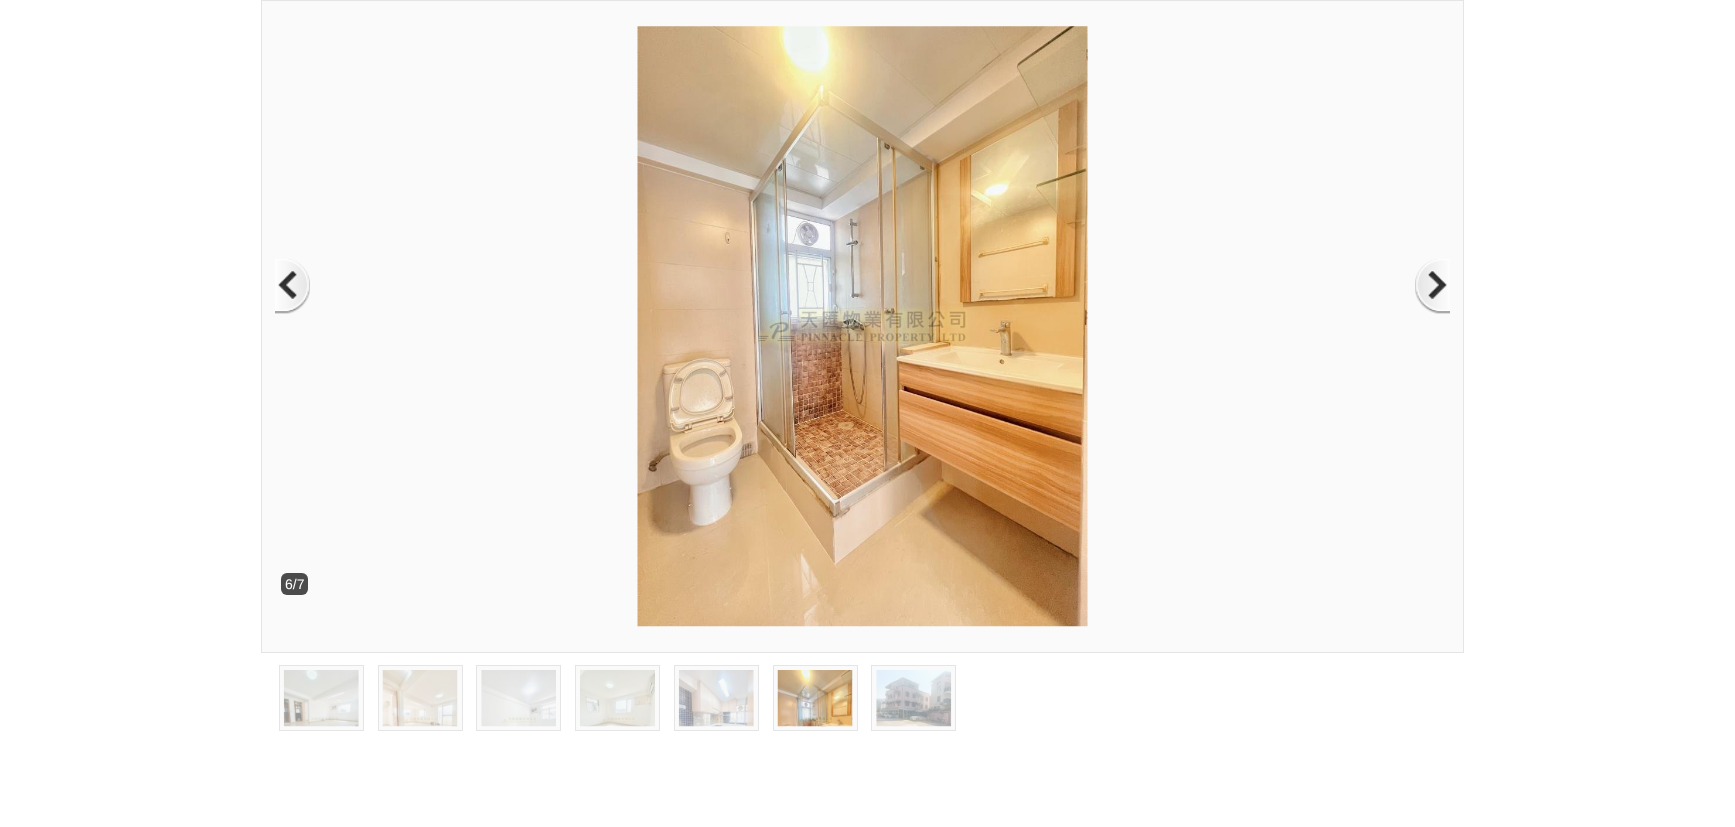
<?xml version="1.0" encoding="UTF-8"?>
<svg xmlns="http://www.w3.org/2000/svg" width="1735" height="827">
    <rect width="100%" height="100%" fill="#FFFFFF"/>
    <rect x="261.5" y="0.5" width="1202" height="652" fill="#FAFAFA" stroke="#E5E5E5"/>
    <image x="275" y="259" width="35" height="55" href="img_01.png"/>
    <image x="1415" y="259" width="35" height="55" href="img_02.png"/>
    <rect x="281" y="573" width="27" height="22" rx="6" fill="#4B4B4B"/>
    <text x="285" y="589" font-family="Liberation Sans" font-size="14" fill="#FFFFFF">6/7</text>
    <image x="637" y="26" width="451" height="601" href="img_03.png"/>
    <rect x="279.5" y="665.5" width="84" height="65" fill="#FAFAFA" stroke="#E5E5E5"/>
    <image x="283" y="670" width="76" height="57" href="img_04.png"/>
    <rect x="378.5" y="665.5" width="84" height="65" fill="#FAFAFA" stroke="#E5E5E5"/>
    <image x="382" y="670" width="76" height="57" href="img_05.png"/>
    <rect x="476.5" y="665.5" width="84" height="65" fill="#FAFAFA" stroke="#E5E5E5"/>
    <image x="481" y="670" width="75" height="57" href="img_06.png"/>
    <rect x="575.5" y="665.5" width="84" height="65" fill="#FAFAFA" stroke="#E5E5E5"/>
    <image x="580" y="670" width="75" height="57" href="img_07.png"/>
    <rect x="674.5" y="665.5" width="84" height="65" fill="#FAFAFA" stroke="#E5E5E5"/>
    <image x="678" y="670" width="76" height="57" href="img_08.png"/>
    <rect x="773.5" y="665.5" width="84" height="65" fill="#FAFAFA" stroke="#E5E5E5"/>
    <image x="777" y="670" width="76" height="57" href="img_09.png"/>
    <rect x="871.5" y="665.5" width="84" height="65" fill="#FAFAFA" stroke="#E5E5E5"/>
    <image x="876" y="670" width="76" height="57" href="img_10.png"/>
</svg>
